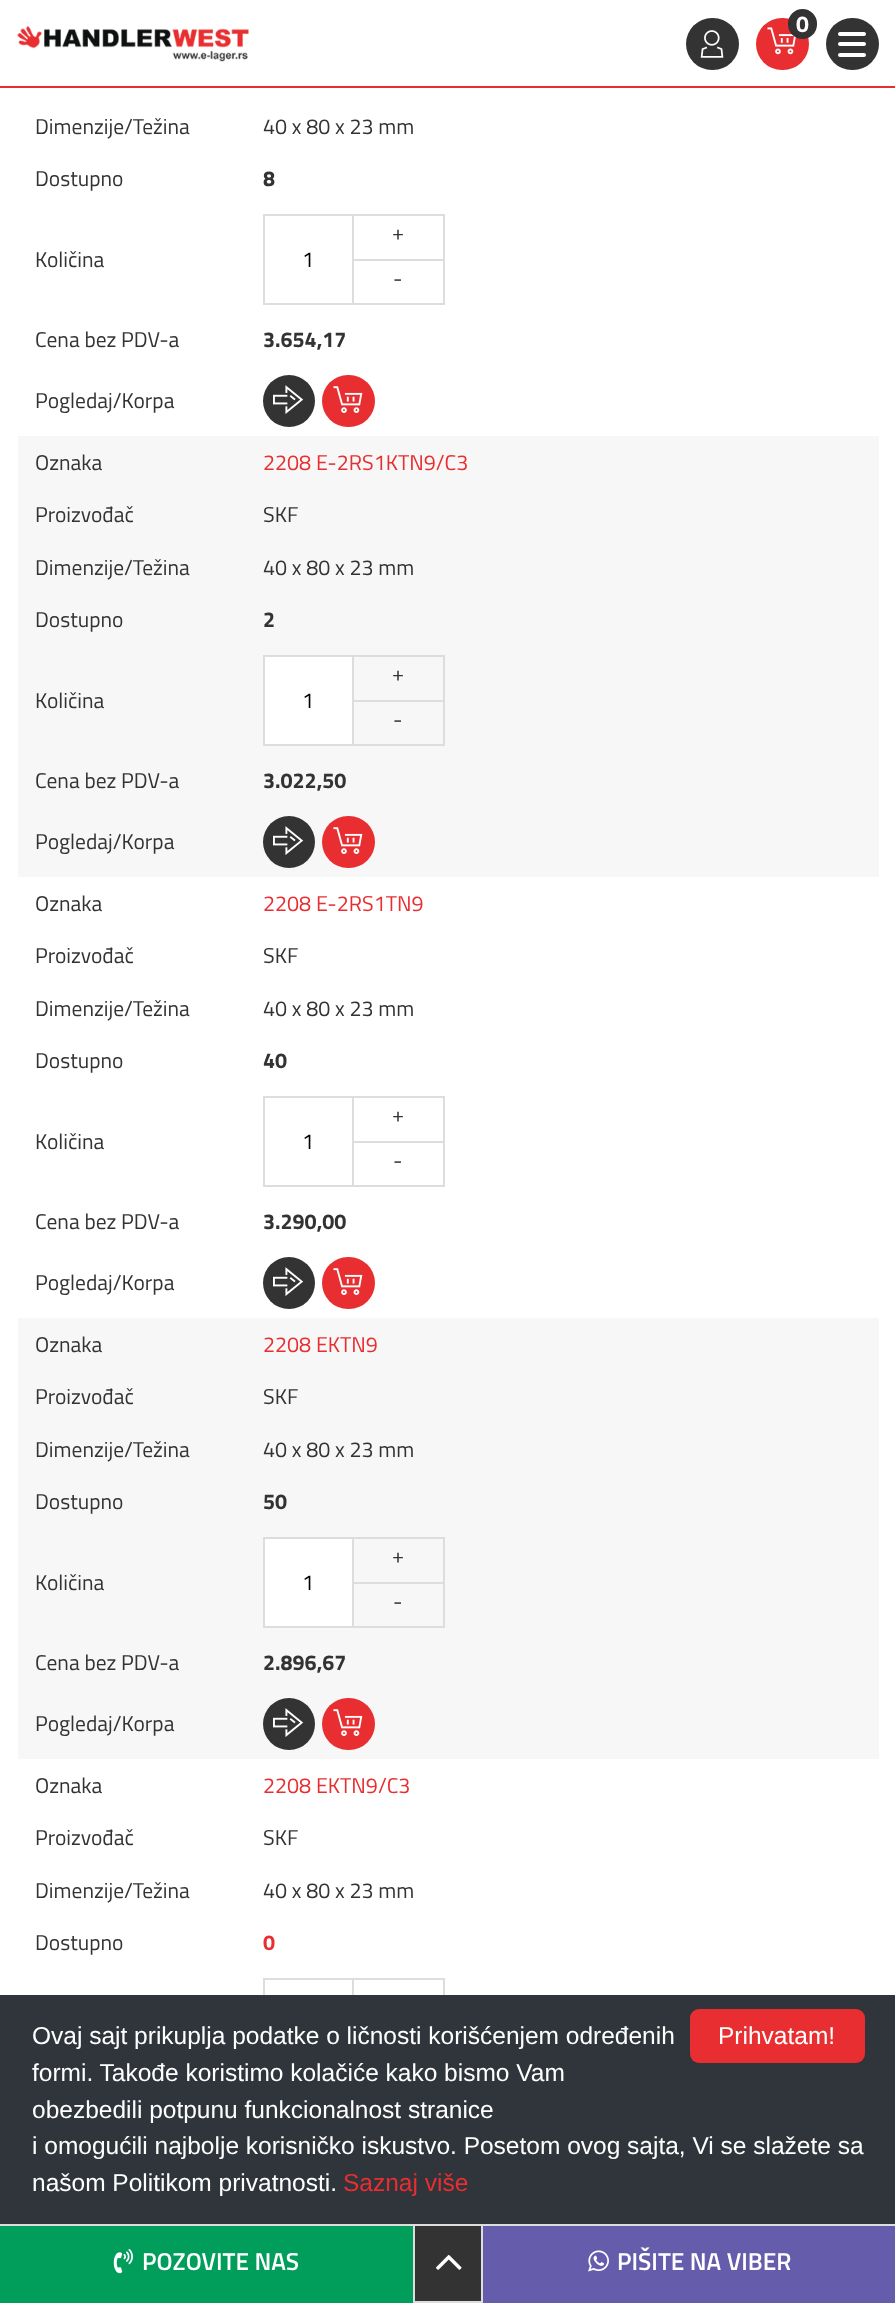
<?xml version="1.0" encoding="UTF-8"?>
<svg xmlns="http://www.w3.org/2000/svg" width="895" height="2303">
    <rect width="100%" height="100%" fill="#FFFFFF"/>
    <rect x="0" y="86" width="895" height="2" fill="#E82E30"/>
    <image x="17" y="26" width="232" height="36" href="img_01.png"/>
    <rect x="686" y="18" width="53" height="52" rx="26" fill="#333333"/>
    <image x="700" y="30" width="24" height="28" href="img_02.png"/>
    <rect x="756" y="18" width="53" height="52" rx="26" fill="#E82E30"/>
    <image x="767" y="27" width="29" height="28" href="img_03.png"/>
    <rect x="789" y="10" width="27" height="28" rx="13.5" fill="#333333" stroke="#333333" stroke-width="2"/>
    <text x="796" y="32" font-family="Titillium Web" font-size="23" font-weight="700" fill="#FFFFFF">0</text>
    <rect x="826" y="18" width="53" height="52" rx="26" fill="#333333"/>
    <rect x="838" y="32" width="28" height="4" rx="2" fill="#FFFFFF"/>
    <rect x="838" y="42" width="28" height="4" rx="2" fill="#FFFFFF"/>
    <rect x="838" y="53" width="28" height="4" rx="2" fill="#FFFFFF"/>
    <text x="35" y="134" font-family="Titillium Web" font-size="21.5" fill="#333333">Dimenzije/Težina</text>
    <text x="263" y="134" font-family="Titillium Web" font-size="21.5" fill="#333333">40 x 80 x 23 mm</text>
    <text x="35" y="186" font-family="Titillium Web" font-size="21.5" fill="#333333">Dostupno</text>
    <text x="263" y="186" font-family="Titillium Web" font-size="21.5" font-weight="700" fill="#333333">8</text>
    <text x="35" y="267" font-family="Titillium Web" font-size="21.5" fill="#333333">Količina</text>
    <rect x="354" y="214" width="91" height="2" fill="#DDDDDD"/>
    <rect x="443" y="214" width="2" height="45" fill="#DDDDDD"/>
    <text x="392" y="240" font-family="Titillium Web" font-size="21.5" fill="#333333">+</text>
    <rect x="264" y="215" width="89" height="89" fill="none" stroke="#DDDDDD" stroke-width="2"/>
    <text x="302" y="267" font-family="Titillium Web" font-size="21.5" fill="#000000">1</text>
    <rect x="354" y="259" width="91" height="2" fill="#DDDDDD"/>
    <rect x="443" y="259" width="2" height="46" fill="#DDDDDD"/>
    <rect x="354" y="303" width="91" height="2" fill="#DDDDDD"/>
    <text x="393" y="286" font-family="Titillium Web" font-size="21.5" fill="#333333">-</text>
    <text x="35" y="347" font-family="Titillium Web" font-size="21.5" fill="#333333">Cena bez PDV-a</text>
    <text x="263" y="347" font-family="Titillium Web" font-size="21.5" font-weight="700" fill="#333333">3.654,17</text>
    <text x="35" y="408" font-family="Titillium Web" font-size="21.5" fill="#333333">Pogledaj/Korpa</text>
    <circle cx="289" cy="401" r="26" fill="#333333"/>
    <image x="273" y="385" width="31" height="29" href="img_04.png"/>
    <rect x="322" y="375" width="53" height="52" rx="26" fill="#E82E30"/>
    <image x="333" y="386" width="30" height="27" href="img_05.png"/>
    <rect x="18" y="436" width="861" height="441" fill="#F7F7F7"/>
    <text x="35" y="470" font-family="Titillium Web" font-size="21.5" fill="#333333">Oznaka</text>
    <text x="263" y="470" font-family="Titillium Web" font-size="21.5" fill="#E82E30">2208 E-2RS1KTN9/C3</text>
    <text x="35" y="522" font-family="Titillium Web" font-size="21.5" fill="#333333">Proizvođač</text>
    <text x="263" y="522" font-family="Titillium Web" font-size="21.5" fill="#333333">SKF</text>
    <text x="35" y="575" font-family="Titillium Web" font-size="21.5" fill="#333333">Dimenzije/Težina</text>
    <text x="263" y="575" font-family="Titillium Web" font-size="21.5" fill="#333333">40 x 80 x 23 mm</text>
    <text x="35" y="627" font-family="Titillium Web" font-size="21.5" fill="#333333">Dostupno</text>
    <text x="263" y="627" font-family="Titillium Web" font-size="21.5" font-weight="700" fill="#333333">2</text>
    <text x="35" y="708" font-family="Titillium Web" font-size="21.5" fill="#333333">Količina</text>
    <rect x="354" y="655" width="91" height="2" fill="#DDDDDD"/>
    <rect x="443" y="655" width="2" height="45" fill="#DDDDDD"/>
    <text x="392" y="681" font-family="Titillium Web" font-size="21.5" fill="#333333">+</text>
    <rect x="264" y="656" width="89" height="89" fill="#FFFFFF" stroke="#DDDDDD" stroke-width="2"/>
    <text x="302" y="708" font-family="Titillium Web" font-size="21.5" fill="#000000">1</text>
    <rect x="354" y="700" width="91" height="2" fill="#DDDDDD"/>
    <rect x="443" y="700" width="2" height="46" fill="#DDDDDD"/>
    <rect x="354" y="744" width="91" height="2" fill="#DDDDDD"/>
    <text x="393" y="727" font-family="Titillium Web" font-size="21.5" fill="#333333">-</text>
    <text x="35" y="788" font-family="Titillium Web" font-size="21.5" fill="#333333">Cena bez PDV-a</text>
    <text x="263" y="788" font-family="Titillium Web" font-size="21.5" font-weight="700" fill="#333333">3.022,50</text>
    <text x="35" y="849" font-family="Titillium Web" font-size="21.5" fill="#333333">Pogledaj/Korpa</text>
    <circle cx="289" cy="842" r="26" fill="#333333"/>
    <image x="273" y="826" width="31" height="29" href="img_04.png"/>
    <rect x="322" y="816" width="53" height="52" rx="26" fill="#E82E30"/>
    <image x="333" y="827" width="30" height="27" href="img_05.png"/>
    <text x="35" y="911" font-family="Titillium Web" font-size="21.5" fill="#333333">Oznaka</text>
    <text x="263" y="911" font-family="Titillium Web" font-size="21.5" fill="#E82E30">2208 E-2RS1TN9</text>
    <text x="35" y="963" font-family="Titillium Web" font-size="21.5" fill="#333333">Proizvođač</text>
    <text x="263" y="963" font-family="Titillium Web" font-size="21.5" fill="#333333">SKF</text>
    <text x="35" y="1016" font-family="Titillium Web" font-size="21.5" fill="#333333">Dimenzije/Težina</text>
    <text x="263" y="1016" font-family="Titillium Web" font-size="21.5" fill="#333333">40 x 80 x 23 mm</text>
    <text x="35" y="1068" font-family="Titillium Web" font-size="21.5" fill="#333333">Dostupno</text>
    <text x="263" y="1068" font-family="Titillium Web" font-size="21.5" font-weight="700" fill="#333333">40</text>
    <text x="35" y="1149" font-family="Titillium Web" font-size="21.5" fill="#333333">Količina</text>
    <rect x="354" y="1096" width="91" height="2" fill="#DDDDDD"/>
    <rect x="443" y="1096" width="2" height="45" fill="#DDDDDD"/>
    <text x="392" y="1122" font-family="Titillium Web" font-size="21.5" fill="#333333">+</text>
    <rect x="264" y="1097" width="89" height="89" fill="none" stroke="#DDDDDD" stroke-width="2"/>
    <text x="302" y="1149" font-family="Titillium Web" font-size="21.5" fill="#000000">1</text>
    <rect x="354" y="1141" width="91" height="2" fill="#DDDDDD"/>
    <rect x="443" y="1141" width="2" height="46" fill="#DDDDDD"/>
    <rect x="354" y="1185" width="91" height="2" fill="#DDDDDD"/>
    <text x="393" y="1168" font-family="Titillium Web" font-size="21.5" fill="#333333">-</text>
    <text x="35" y="1229" font-family="Titillium Web" font-size="21.5" fill="#333333">Cena bez PDV-a</text>
    <text x="263" y="1229" font-family="Titillium Web" font-size="21.5" font-weight="700" fill="#333333">3.290,00</text>
    <text x="35" y="1290" font-family="Titillium Web" font-size="21.5" fill="#333333">Pogledaj/Korpa</text>
    <circle cx="289" cy="1283" r="26" fill="#333333"/>
    <image x="273" y="1267" width="31" height="29" href="img_04.png"/>
    <rect x="322" y="1257" width="53" height="52" rx="26" fill="#E82E30"/>
    <image x="333" y="1268" width="30" height="27" href="img_05.png"/>
    <rect x="18" y="1318" width="861" height="441" fill="#F7F7F7"/>
    <text x="35" y="1352" font-family="Titillium Web" font-size="21.5" fill="#333333">Oznaka</text>
    <text x="263" y="1352" font-family="Titillium Web" font-size="21.5" fill="#E82E30">2208 EKTN9</text>
    <text x="35" y="1404" font-family="Titillium Web" font-size="21.5" fill="#333333">Proizvođač</text>
    <text x="263" y="1404" font-family="Titillium Web" font-size="21.5" fill="#333333">SKF</text>
    <text x="35" y="1457" font-family="Titillium Web" font-size="21.5" fill="#333333">Dimenzije/Težina</text>
    <text x="263" y="1457" font-family="Titillium Web" font-size="21.5" fill="#333333">40 x 80 x 23 mm</text>
    <text x="35" y="1509" font-family="Titillium Web" font-size="21.5" fill="#333333">Dostupno</text>
    <text x="263" y="1509" font-family="Titillium Web" font-size="21.5" font-weight="700" fill="#333333">50</text>
    <text x="35" y="1590" font-family="Titillium Web" font-size="21.5" fill="#333333">Količina</text>
    <rect x="354" y="1537" width="91" height="2" fill="#DDDDDD"/>
    <rect x="443" y="1537" width="2" height="45" fill="#DDDDDD"/>
    <text x="392" y="1563" font-family="Titillium Web" font-size="21.5" fill="#333333">+</text>
    <rect x="264" y="1538" width="89" height="89" fill="#FFFFFF" stroke="#DDDDDD" stroke-width="2"/>
    <text x="302" y="1590" font-family="Titillium Web" font-size="21.5" fill="#000000">1</text>
    <rect x="354" y="1582" width="91" height="2" fill="#DDDDDD"/>
    <rect x="443" y="1582" width="2" height="46" fill="#DDDDDD"/>
    <rect x="354" y="1626" width="91" height="2" fill="#DDDDDD"/>
    <text x="393" y="1609" font-family="Titillium Web" font-size="21.5" fill="#333333">-</text>
    <text x="35" y="1670" font-family="Titillium Web" font-size="21.5" fill="#333333">Cena bez PDV-a</text>
    <text x="263" y="1670" font-family="Titillium Web" font-size="21.5" font-weight="700" fill="#333333">2.896,67</text>
    <text x="35" y="1731" font-family="Titillium Web" font-size="21.5" fill="#333333">Pogledaj/Korpa</text>
    <circle cx="289" cy="1724" r="26" fill="#333333"/>
    <image x="273" y="1708" width="31" height="29" href="img_04.png"/>
    <rect x="322" y="1698" width="53" height="52" rx="26" fill="#E82E30"/>
    <image x="333" y="1709" width="30" height="27" href="img_05.png"/>
    <text x="35" y="1793" font-family="Titillium Web" font-size="21.5" fill="#333333">Oznaka</text>
    <text x="263" y="1793" font-family="Titillium Web" font-size="21.5" fill="#E82E30">2208 EKTN9/C3</text>
    <text x="35" y="1845" font-family="Titillium Web" font-size="21.5" fill="#333333">Proizvođač</text>
    <text x="263" y="1845" font-family="Titillium Web" font-size="21.5" fill="#333333">SKF</text>
    <text x="35" y="1898" font-family="Titillium Web" font-size="21.5" fill="#333333">Dimenzije/Težina</text>
    <text x="263" y="1898" font-family="Titillium Web" font-size="21.5" fill="#333333">40 x 80 x 23 mm</text>
    <text x="35" y="1950" font-family="Titillium Web" font-size="21.5" fill="#333333">Dostupno</text>
    <text x="263" y="1950" font-family="Titillium Web" font-size="21.5" font-weight="700" fill="#E82E30">0</text>
    <rect x="264" y="1979" width="89" height="89" fill="none" stroke="#DDDDDD" stroke-width="2"/>
    <rect x="354" y="1978" width="91" height="2" fill="#DDDDDD"/>
    <rect x="443" y="1978" width="2" height="17" fill="#DDDDDD"/>
    <rect x="0" y="2226" width="413" height="77" fill="#019D5B"/>
    <rect x="0" y="2224" width="413" height="2" fill="#DDDDDD"/>
    <image x="113" y="2249" width="20" height="25" href="img_06.png"/>
    <text x="142" y="2270" font-family="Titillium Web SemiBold" font-size="24.5" font-weight="600" fill="#FFFFFF">POZOVITE NAS</text>
    <rect x="414" y="2225" width="68" height="77" fill="#333333" stroke="#DDDDDD" stroke-width="2"/>
    <image x="436" y="2255" width="26" height="15" href="img_07.png"/>
    <rect x="483" y="2226" width="412" height="77" fill="#665CAC"/>
    <rect x="483" y="2224" width="412" height="2" fill="#DDDDDD"/>
    <image x="588" y="2250" width="21" height="22" href="img_08.png"/>
    <text x="617" y="2270" font-family="Titillium Web SemiBold" font-size="24.5" font-weight="600" fill="#FFFFFF">PIŠITE NA VIBER</text>
    <rect x="0" y="1995" width="895" height="229" fill="#2F353B"/>
    <text font-family="Liberation Sans" font-size="24.5" fill="#FFFFFF">
        <tspan x="32" y="2044">Ovaj sajt prikuplja podatke o ličnosti korišćenjem određenih</tspan>
        <tspan x="32" y="2081">formi. Takođe koristimo kolačiće kako bismo Vam</tspan>
        <tspan x="32" y="2118">obezbedili potpunu funkcionalnost stranice</tspan>
        <tspan x="32" y="2154">i omogućili najbolje korisničko iskustvo. Posetom ovog sajta, Vi se slažete sa</tspan>
        <tspan x="32" y="2191">našom Politikom privatnosti.</tspan>
    </text>
    <text x="343" y="2191" font-family="Liberation Sans" font-size="24.5" fill="#E82E30">Saznaj više</text>
    <rect x="690" y="2009" width="175" height="54" rx="9" fill="#E82E30"/>
    <text x="718" y="2044" font-family="Liberation Sans" font-size="24.5" fill="#FFFFFF">Prihvatam!</text>
</svg>
